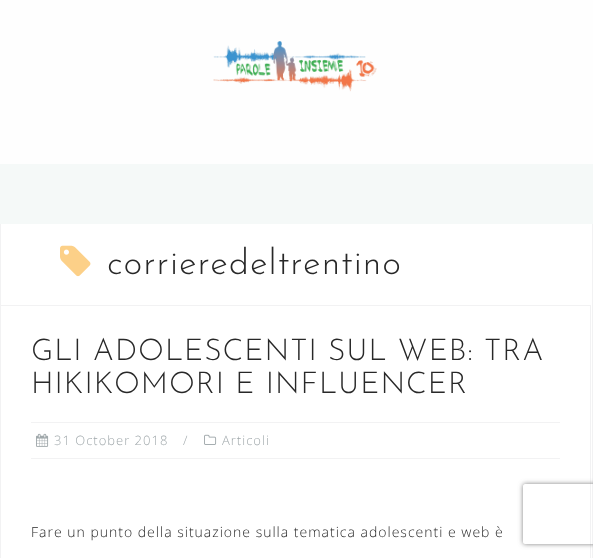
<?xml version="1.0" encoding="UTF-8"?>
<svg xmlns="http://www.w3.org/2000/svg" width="593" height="558">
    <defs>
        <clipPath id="clip1"><path d="M 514 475 H 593 V 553 H 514 Z M 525 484 H 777 C 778 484 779 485 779 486 V 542 C 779 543 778 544 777 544 H 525 C 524 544 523 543 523 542 V 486 C 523 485 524 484 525 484 Z" clip-rule="evenodd"/></clipPath>
        <filter id="blur1" x="-50%" y="-200%" width="200%" height="500%"><feGaussianBlur stdDeviation="2.5"/></filter>
    </defs>
    <rect width="100%" height="100%" fill="#F5F9F8"/>
    <rect x="0" y="0" width="593" height="164" fill="#FEFEFE"/>
    <image x="213" y="41" width="164" height="51" href="img_01.png"/>
    <rect x="1" y="224" width="591" height="334" fill="#FFFFFF"/>
    <rect x="592" y="224" width="1" height="334" fill="#F2F2F3"/>
    <rect x="0" y="224" width="1" height="81" fill="#F2F2F3"/>
    <image x="60" y="245" width="31" height="32" href="img_02.png"/>
    <text x="107" y="274" font-family="Josefin Sans" font-size="36" font-weight="100" letter-spacing="1" fill="#282828">corrieredeltrentino</text>
    <rect x="0.5" y="305.5" width="590" height="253" fill="none" stroke="#F2F2F3"/>
    <text font-family="Josefin Sans" font-size="30" font-weight="100" letter-spacing="1" fill="#282828">
        <tspan x="31" y="360">GLI ADOLESCENTI SUL WEB: TRA</tspan>
        <tspan x="31" y="393">HIKIKOMORI E INFLUENCER</tspan>
    </text>
    <rect x="31" y="422" width="529" height="1" fill="#F2F2F3"/>
    <rect x="31" y="458" width="529" height="1" fill="#F2F2F3"/>
    <image x="36" y="433" width="13" height="14" href="img_03.png"/>
    <text x="54" y="445" font-family="Open Sans" font-size="13" font-weight="300" letter-spacing="1" fill="#A0A8AB">31 October 2018</text>
    <text x="183" y="445" font-family="Open Sans" font-size="13" font-weight="300" letter-spacing="1" fill="#A0A8AB">/</text>
    <image x="204" y="434" width="13" height="11" href="img_04.png"/>
    <text x="222" y="445" font-family="Open Sans" font-size="13" font-weight="300" letter-spacing="1" fill="#A0A8AB">Articoli</text>
    <text x="31" y="537" font-family="Open Sans" font-size="14" font-weight="300" letter-spacing="1" fill="#282828">Fare un punto della situazione sulla tematica adolescenti e web è</text>
    <g clip-path="url(#clip1)">
        <rect x="523" y="484" width="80" height="60" rx="2" fill="#808080" filter="url(#blur1)"/>
    </g>
</svg>
